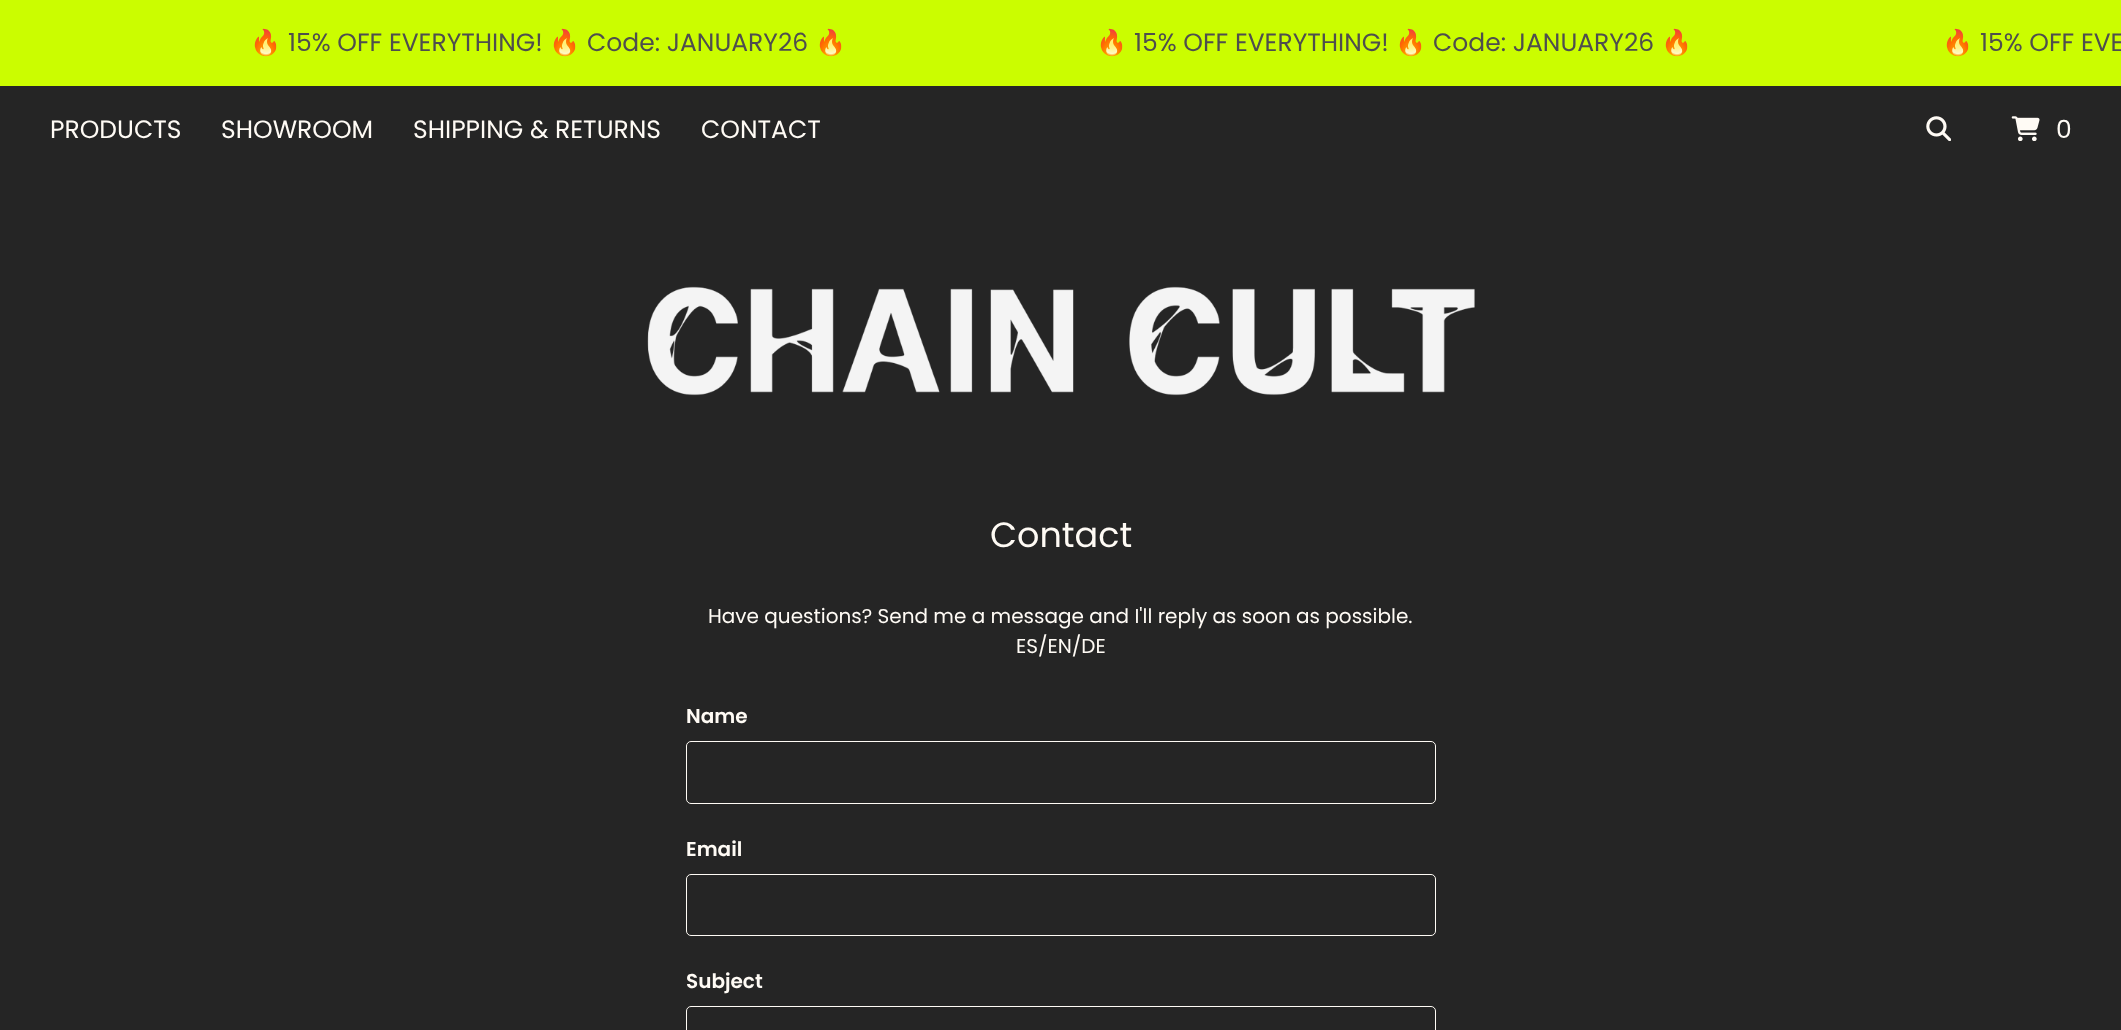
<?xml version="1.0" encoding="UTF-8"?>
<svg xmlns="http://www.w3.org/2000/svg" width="2121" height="1030">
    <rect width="100%" height="100%" fill="#252525"/>
    <rect x="0" y="0" width="2121" height="86" fill="#CBFD00"/>
    <text x="250" y="51" font-family="Noto Color Emoji" font-size="25" fill="#4E4E4E">🔥</text>
    <text x="288" y="51" font-family="Poppins" font-size="25" fill="#4E4E4E">15% OFF EVERYTHING!</text>
    <text x="549" y="51" font-family="Noto Color Emoji" font-size="25" fill="#4E4E4E">🔥</text>
    <text x="587" y="51" font-family="Poppins" font-size="25" fill="#4E4E4E">Code: JANUARY26</text>
    <text x="815" y="51" font-family="Noto Color Emoji" font-size="25" fill="#4E4E4E">🔥</text>
    <text x="1096" y="51" font-family="Noto Color Emoji" font-size="25" fill="#4E4E4E">🔥</text>
    <text x="1134" y="51" font-family="Poppins" font-size="25" fill="#4E4E4E">15% OFF EVERYTHING!</text>
    <text x="1395" y="51" font-family="Noto Color Emoji" font-size="25" fill="#4E4E4E">🔥</text>
    <text x="1433" y="51" font-family="Poppins" font-size="25" fill="#4E4E4E">Code: JANUARY26</text>
    <text x="1661" y="51" font-family="Noto Color Emoji" font-size="25" fill="#4E4E4E">🔥</text>
    <text x="1942" y="51" font-family="Noto Color Emoji" font-size="25" fill="#4E4E4E">🔥</text>
    <text x="1980" y="51" font-family="Poppins" font-size="25" fill="#4E4E4E">15% OFF EVE</text>
    <text x="50" y="138" font-family="Poppins" font-size="25" fill="#FFFBF5">PRODUCTS</text>
    <text x="221" y="138" font-family="Poppins" font-size="25" fill="#FFFBF5">SHOWROOM</text>
    <text x="413" y="138" font-family="Poppins" font-size="25" fill="#FFFBF5">SHIPPING &amp; RETURNS</text>
    <text x="701" y="138" font-family="Poppins" font-size="25" fill="#FFFBF5">CONTACT</text>
    <image x="1926" y="116" width="25" height="25" href="img_01.png"/>
    <image x="2011" y="116" width="29" height="25" href="img_02.png"/>
    <text x="2056" y="138" font-family="Poppins" font-size="25" fill="#FFFBF5">0</text>
    <image x="647" y="286" width="828" height="110" href="img_03.png"/>
    <text x="990" y="547" font-family="Poppins" font-size="35" fill="#FFFBF5">Contact</text>
    <text x="708" y="623" font-family="Poppins" font-size="20" fill="#FFFBF5">Have questions? Send me a message and I'll reply as soon as possible.</text>
    <text x="1016" y="653" font-family="Poppins" font-size="20" fill="#FFFBF5">ES/EN/DE</text>
    <text x="686" y="723" font-family="Poppins" font-size="20" font-weight="600" fill="#FFFBF5">Name</text>
    <rect x="686.5" y="741.5" width="749" height="62" rx="4.5" fill="none" stroke="#FFFBF5"/>
    <text x="686" y="856" font-family="Poppins" font-size="20" font-weight="600" fill="#FFFBF5">Email</text>
    <rect x="686.5" y="874.5" width="749" height="61" rx="4.5" fill="none" stroke="#FFFBF5"/>
    <text x="686" y="988" font-family="Poppins" font-size="20" font-weight="600" fill="#FFFBF5">Subject</text>
    <rect x="686.5" y="1006.5" width="749" height="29" rx="4.5" fill="none" stroke="#FFFBF5"/>
</svg>
